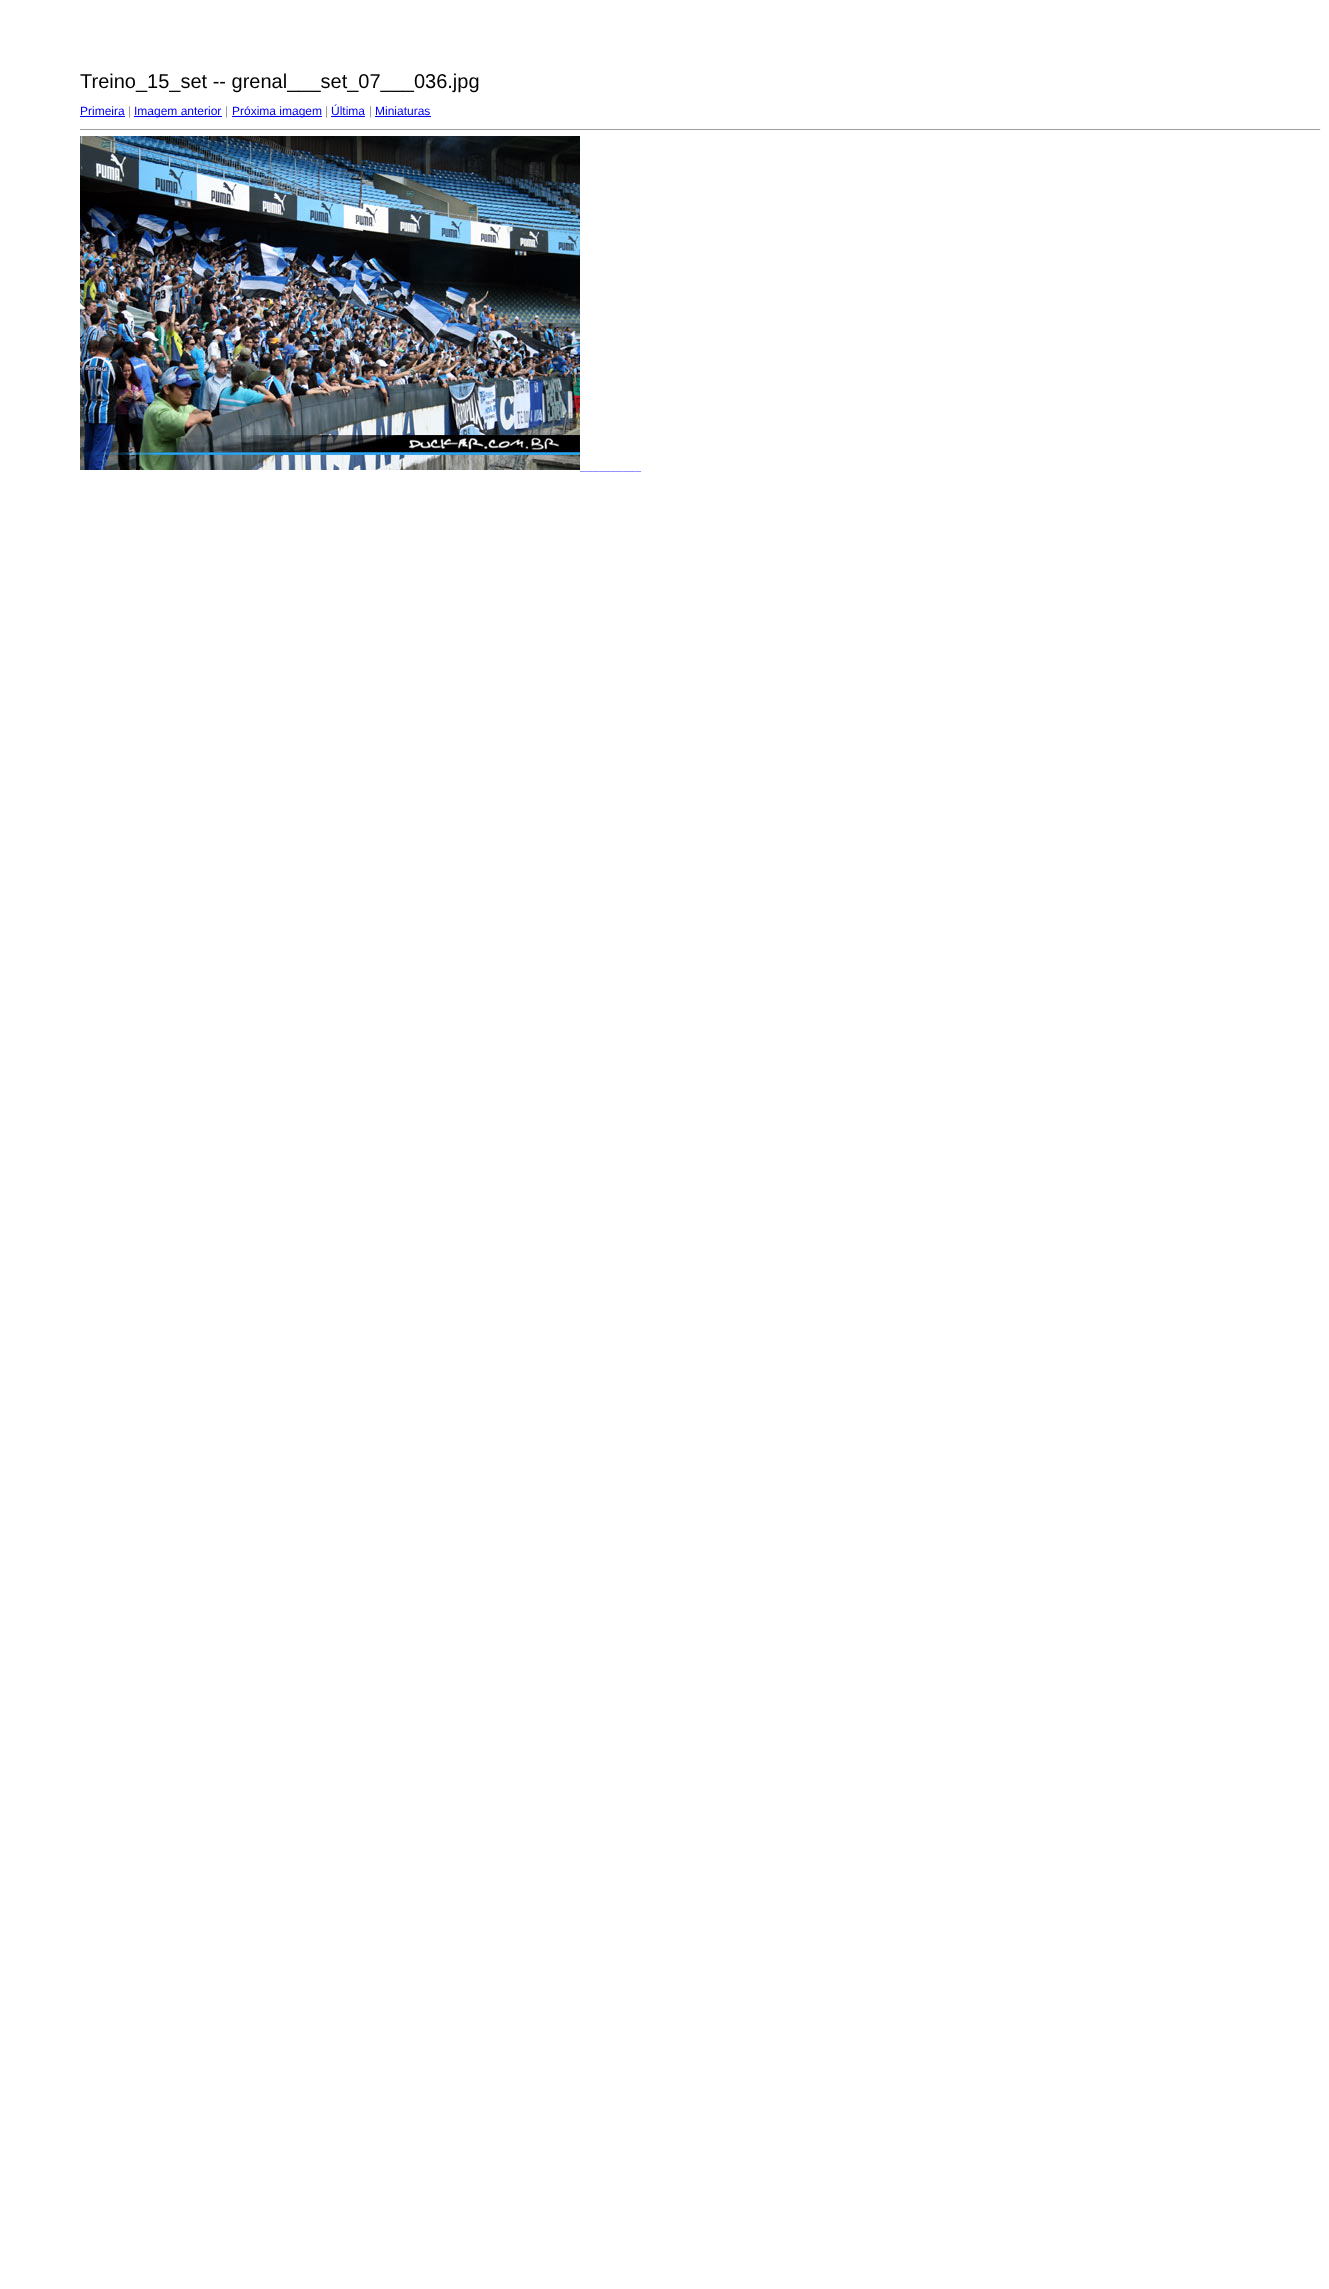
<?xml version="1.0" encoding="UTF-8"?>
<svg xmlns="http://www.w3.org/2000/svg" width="1329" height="2289">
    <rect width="100%" height="100%" fill="#FFFFFF"/>
    <text x="80" y="88" font-family="Liberation Sans" font-size="20" fill="#000000">Treino_15_set -- grenal___set_07___036.jpg</text>
    <text x="80" y="115" font-family="Liberation Sans" font-size="12" fill="#0000EE">Primeira</text>
    <rect x="80" y="116" width="45" height="1" fill="#0000EE"/>
    <text x="128" y="115" font-family="Liberation Sans" font-size="12" fill="#979797">|</text>
    <rect x="134" y="116" width="88" height="1" fill="#0000EE"/>
    <text x="134" y="115" font-family="Liberation Sans" font-size="12" fill="#0000EE">Imagem anterior</text>
    <text x="225" y="115" font-family="Liberation Sans" font-size="12" fill="#979797">|</text>
    <rect x="232" y="116" width="90" height="1" fill="#0000EE"/>
    <text x="232" y="115" font-family="Liberation Sans" font-size="12" fill="#0000EE">Próxima imagem</text>
    <text x="325" y="115" font-family="Liberation Sans" font-size="12" fill="#979797">|</text>
    <rect x="331" y="116" width="34" height="1" fill="#0000EE"/>
    <text x="331" y="115" font-family="Liberation Sans" font-size="12" fill="#0000EE">Última</text>
    <text x="369" y="115" font-family="Liberation Sans" font-size="12" fill="#979797">|</text>
    <text x="375" y="115" font-family="Liberation Sans" font-size="12" fill="#0000EE">Miniaturas</text>
    <rect x="375" y="116" width="56" height="1" fill="#0000EE"/>
    <rect x="80" y="129" width="1241" height="1" fill="#9F9F9F"/>
    <rect x="1320" y="129" width="1" height="1" fill="#EEEEEE"/>
    <image x="80" y="136" width="500" height="334" href="img_01.png"/>
    <rect x="580" y="471" width="61" height="1" fill="#0000EE"/>
    <text x="580" y="470" font-family="Liberation Sans" font-size="11" fill="#FFFFFF">__________</text>
</svg>
